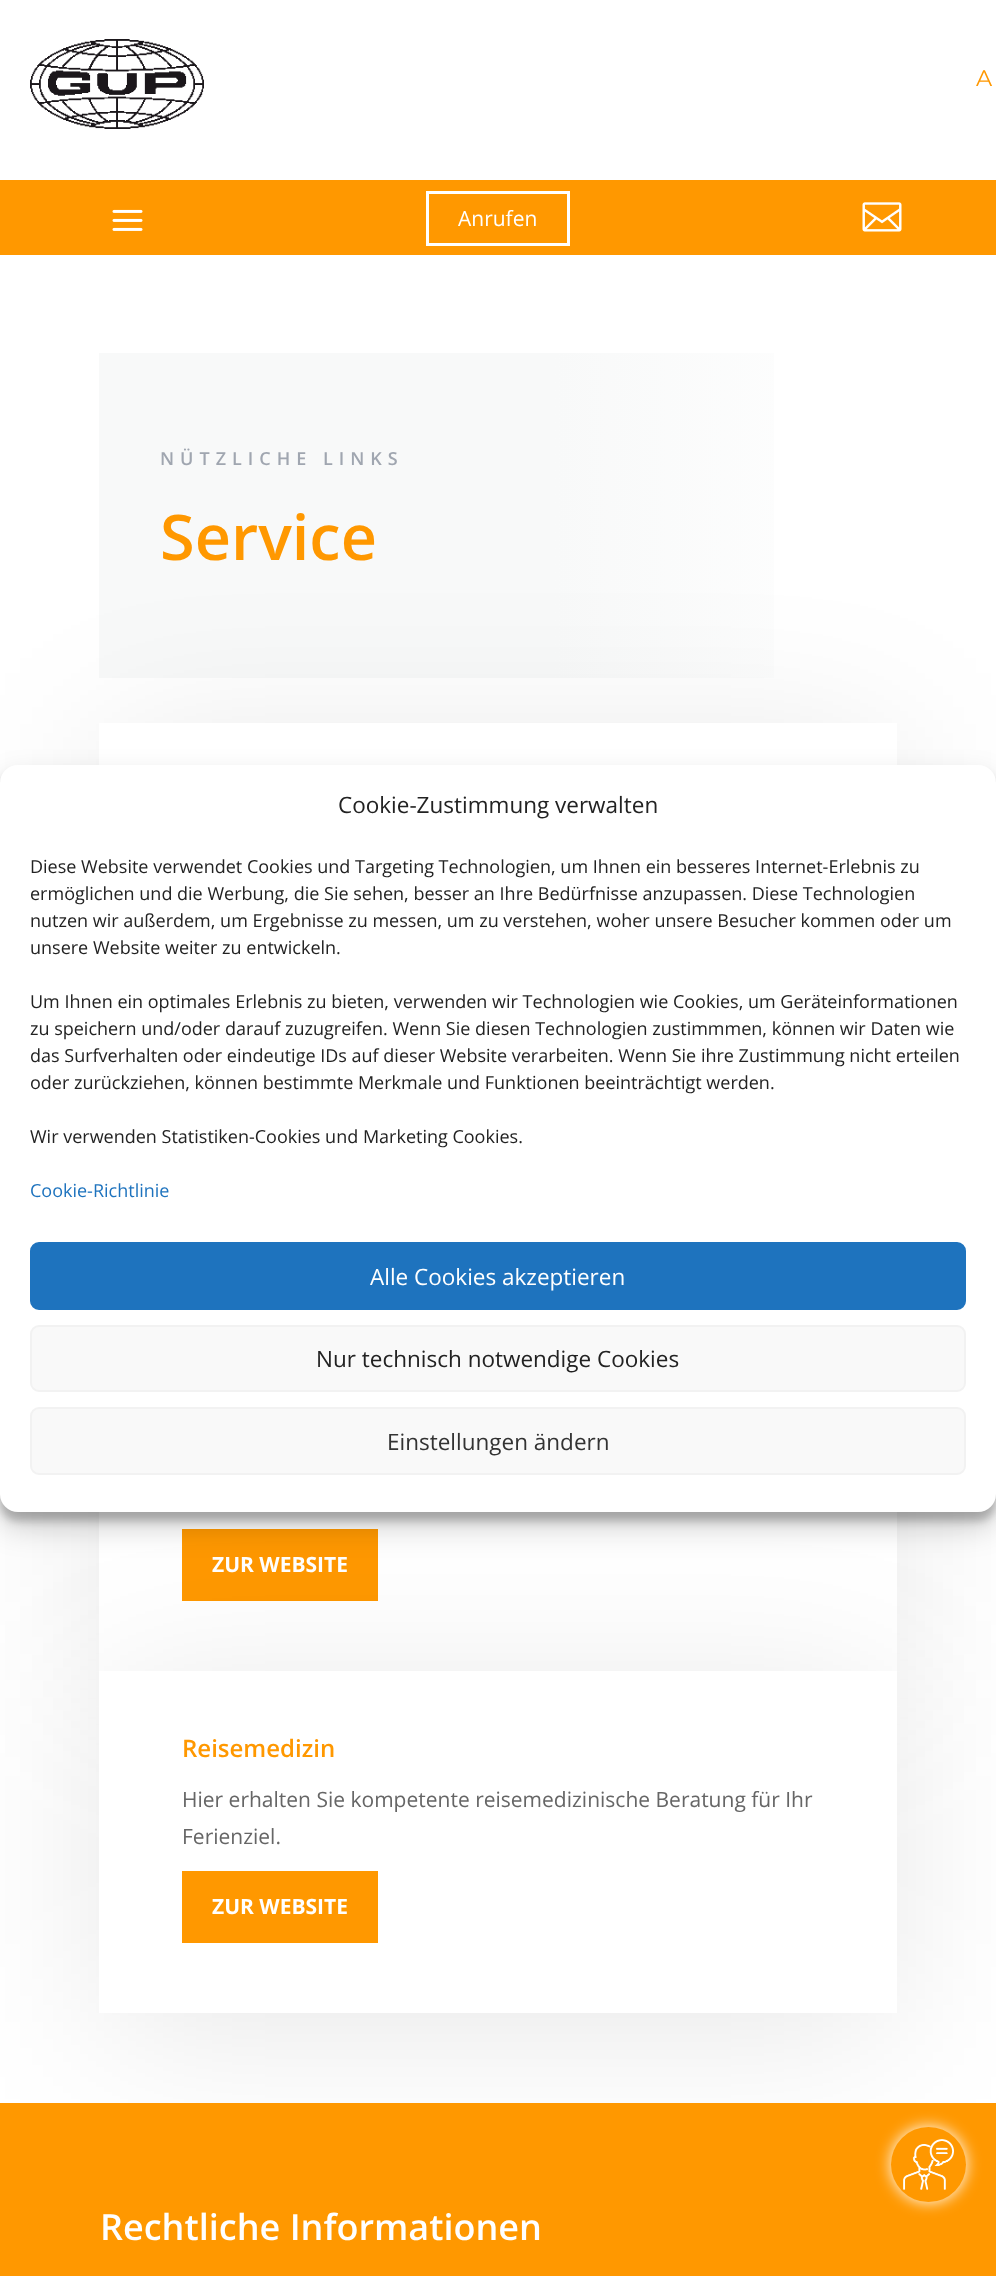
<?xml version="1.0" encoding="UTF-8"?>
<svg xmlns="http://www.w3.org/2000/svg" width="996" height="2276">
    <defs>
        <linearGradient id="g1" gradientUnits="userSpaceOnUse" x1="99" y1="515" x2="897" y2="515"><stop offset="0.57" stop-color="#F8F9F9"/><stop offset="1" stop-color="#FFFFFF"/></linearGradient>
        <filter id="blur1" x="-50%" y="-200%" width="200%" height="500%"><feGaussianBlur stdDeviation="82.5"/></filter>
        <filter id="blur2" x="-50%" y="-200%" width="200%" height="500%"><feGaussianBlur stdDeviation="7.5"/></filter>
        <filter id="blur3" x="-50%" y="-200%" width="200%" height="500%"><feGaussianBlur stdDeviation="4.5"/></filter>
        <filter id="blur4" x="-50%" y="-200%" width="200%" height="500%"><feGaussianBlur stdDeviation="15"/></filter>
    </defs>
    <rect width="100%" height="100%" fill="#FFFFFF"/>
    <image x="30" y="39" width="174" height="90" href="img_01.png"/>
    <text x="976" y="86" font-family="Montserrat" font-size="22.5" fill="#FF9800">A</text>
    <rect x="0" y="180" width="996" height="75" fill="#FF9800"/>
    <image x="112" y="209" width="31" height="22" href="img_02.png"/>
    <rect x="427.5" y="192.5" width="141" height="52" fill="none" stroke="#FFFFFF" stroke-width="3"/>
    <text x="458" y="226" font-family="Open Sans" font-size="21" fill="#FFFFFF">Anrufen</text>
    <image x="862" y="202" width="40" height="30" href="img_03.png"/>
    <rect x="99" y="353" width="675" height="325" fill="url(#g1)"/>
    <text x="160" y="465" font-family="Open Sans" font-size="18" font-weight="600" letter-spacing="6" fill="#A0A6B0">NÜTZLICHE LINKS</text>
    <text x="160" y="560" font-family="Open Sans" font-size="63" font-weight="600" fill="#FF9800">Service</text>
    <rect x="108" y="750" width="780" height="323" fill="#000000" fill-opacity="0.1" filter="url(#blur1)"/>
    <rect x="99" y="723" width="798" height="42" fill="#FFFFFF"/>
    <rect x="108" y="1395" width="780" height="285" fill="#000000" fill-opacity="0.1" filter="url(#blur1)"/>
    <rect x="99" y="1512" width="798" height="159" fill="#FFFFFF"/>
    <rect x="182" y="1529" width="196" height="72" fill="#FF9800"/>
    <text x="212" y="1572" font-family="Open Sans" font-size="21" font-weight="700" fill="#FFFFFF">ZUR WEBSITE</text>
    <rect x="108" y="1698" width="780" height="324" fill="#000000" fill-opacity="0.1" filter="url(#blur1)"/>
    <rect x="99" y="1671" width="798" height="342" fill="#FFFFFF"/>
    <text x="182" y="1757" font-family="Open Sans" font-size="24" font-weight="600" fill="#FF9800">Reisemedizin</text>
    <text font-family="Open Sans" font-size="21" fill="#666666">
        <tspan x="182" y="1807">Hier erhalten Sie kompetente reisemedizinische Beratung für Ihr</tspan>
        <tspan x="182" y="1844">Ferienziel.</tspan>
    </text>
    <rect x="182" y="1871" width="196" height="72" fill="#FF9800"/>
    <text x="212" y="1914" font-family="Open Sans" font-size="21" font-weight="700" fill="#FFFFFF">ZUR WEBSITE</text>
    <rect x="0" y="2103" width="996" height="173" fill="#FF9800"/>
    <text x="100" y="2240" font-family="Open Sans" font-size="36" font-weight="600" fill="#FFFFFF">Rechtliche Informationen</text>
    <rect x="891" y="2127" width="75" height="75" rx="37.5" fill="#FFFFFF" filter="url(#blur2)"/>
    <circle cx="928.5" cy="2164.5" r="37.5" fill="#FF9800"/>
    <image x="903" y="2139" width="51" height="51" href="img_04.png"/>
    <rect x="0" y="774" width="996" height="747" rx="18" fill="#000000" fill-opacity="0.23" filter="url(#blur3)"/>
    <rect x="0" y="780" width="996" height="747" rx="18" fill="#000000" fill-opacity="0.19" filter="url(#blur4)"/>
    <rect x="0" y="765" width="996" height="747" rx="18" fill="#FFFFFF"/>
    <text x="338" y="813" font-family="Open Sans" font-size="22.5" fill="#222222">Cookie-Zustimmung verwalten</text>
    <text font-family="Open Sans" font-size="18" fill="#222222">
        <tspan x="30" y="873">Diese Website verwendet Cookies und Targeting Technologien, um Ihnen ein besseres Internet-Erlebnis zu</tspan>
        <tspan x="30" y="900">ermöglichen und die Werbung, die Sie sehen, besser an Ihre Bedürfnisse anzupassen. Diese Technologien</tspan>
        <tspan x="30" y="927">nutzen wir außerdem, um Ergebnisse zu messen, um zu verstehen, woher unsere Besucher kommen oder um</tspan>
        <tspan x="30" y="954">unsere Website weiter zu entwickeln.</tspan>
    </text>
    <text font-family="Open Sans" font-size="18" fill="#222222">
        <tspan x="30" y="1008">Um Ihnen ein optimales Erlebnis zu bieten, verwenden wir Technologien wie Cookies, um Geräteinformationen</tspan>
        <tspan x="30" y="1035">zu speichern und/oder darauf zuzugreifen. Wenn Sie diesen Technologien zustimmmen, können wir Daten wie</tspan>
        <tspan x="30" y="1062">das Surfverhalten oder eindeutige IDs auf dieser Website verarbeiten. Wenn Sie ihre Zustimmung nicht erteilen</tspan>
        <tspan x="30" y="1089">oder zurückziehen, können bestimmte Merkmale und Funktionen beeinträchtigt werden.</tspan>
    </text>
    <text x="30" y="1143" font-family="Open Sans" font-size="18" fill="#222222">Wir verwenden Statistiken-Cookies und Marketing Cookies.</text>
    <text x="30" y="1197" font-family="Open Sans" font-size="18" fill="#1E73BE">Cookie-Richtlinie</text>
    <rect x="31" y="1243" width="934" height="66" rx="8" fill="#1E73BE" stroke="#1E73BE" stroke-width="2"/>
    <text x="370" y="1285" font-family="Open Sans" font-size="22.5" fill="#FFFFFF">Alle Cookies akzeptieren</text>
    <rect x="31" y="1326" width="934" height="65" rx="8" fill="#F9F9F9" stroke="#F2F2F2" stroke-width="2"/>
    <text x="316" y="1367" font-family="Open Sans" font-size="22.5" fill="#222222">Nur technisch notwendige Cookies</text>
    <rect x="31" y="1408" width="934" height="66" rx="8" fill="#F9F9F9" stroke="#F2F2F2" stroke-width="2"/>
    <text x="387" y="1450" font-family="Open Sans" font-size="22.5" fill="#333333">Einstellungen ändern</text>
</svg>
